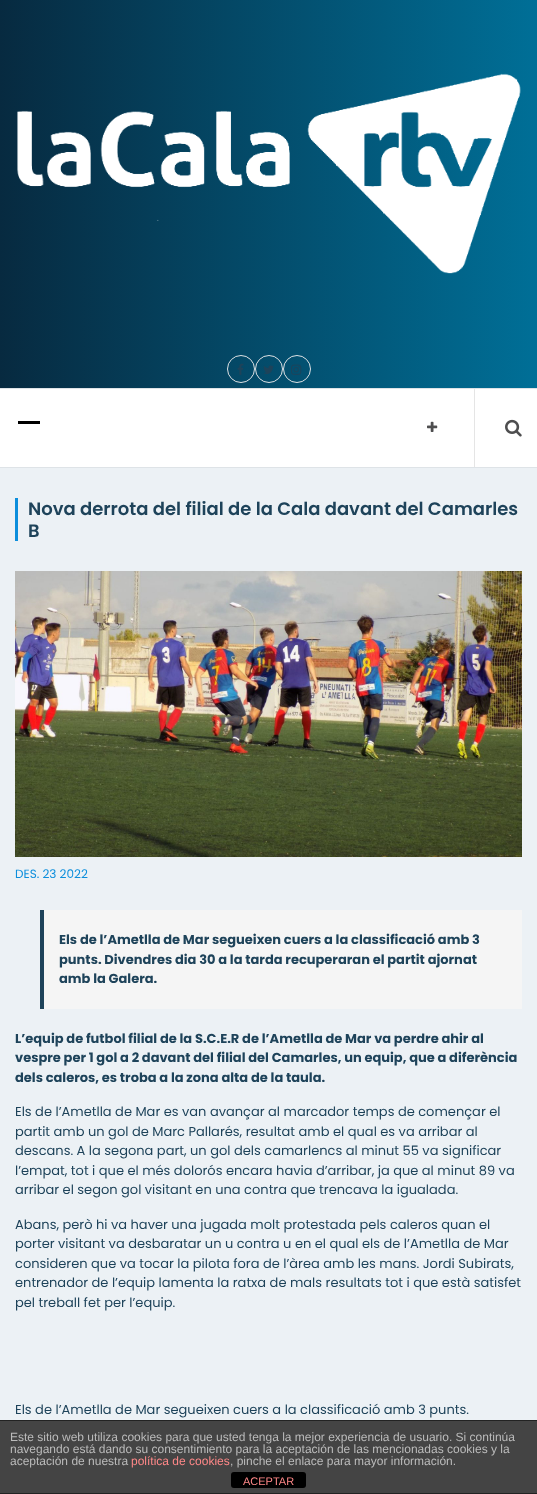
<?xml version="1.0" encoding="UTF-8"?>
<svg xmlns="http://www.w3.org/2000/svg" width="537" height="1494">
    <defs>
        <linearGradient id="g1" gradientUnits="userSpaceOnUse" x1="0" y1="194" x2="537" y2="194"><stop offset="0" stop-color="#072A40"/><stop offset="1" stop-color="#006F97"/></linearGradient>
    </defs>
    <rect width="100%" height="100%" fill="#ECF1F5"/>
    <rect x="0" y="0" width="537" height="388" fill="url(#g1)"/>
    <image x="17" y="73" width="504" height="201" href="img_01.png"/>
    <circle cx="241" cy="369" r="13.5" fill="none" stroke="#DCE1E4"/>
    <image x="237" y="363" width="7" height="12" href="img_02.png"/>
    <circle cx="269" cy="369" r="13.5" fill="none" stroke="#DCE1E4"/>
    <image x="263" y="365" width="11" height="9" href="img_03.png"/>
    <circle cx="297" cy="369" r="13.5" fill="none" stroke="#DCE1E4"/>
    <image x="291" y="364" width="11" height="11" href="img_04.png"/>
    <rect x="0" y="389" width="537" height="78" fill="#FFFFFF"/>
    <rect x="0" y="388" width="537" height="1" fill="#DEE3E7"/>
    <rect x="0" y="467" width="537" height="1" fill="#DEE3E7"/>
    <rect x="18" y="421" width="22" height="3" fill="#000000"/>
    <image x="427" y="421" width="11" height="11" href="img_05.png"/>
    <rect x="474" y="389" width="1" height="78" fill="#E5E5E5"/>
    <image x="505" y="419" width="17" height="18" href="img_06.png"/>
    <rect x="15" y="498" width="3" height="43" fill="#0C8EDC"/>
    <text font-family="Poppins" font-size="18" font-weight="600" fill="#1E435A">
        <tspan x="28" y="515">Nova derrota del filial de la Cala davant del Camarles</tspan>
        <tspan x="28" y="537">B</tspan>
    </text>
    <image x="15" y="571" width="507" height="286" href="img_07.png"/>
    <text x="15" y="878" font-family="Poppins" font-size="12" fill="#0C8EDC">DES. 23 2022</text>
    <rect x="44" y="910" width="478" height="99" fill="#F5F5F5"/>
    <rect x="40" y="910" width="4" height="99" fill="#1E435A"/>
    <text font-family="Poppins" font-size="13" font-weight="700" fill="#1E435A">
        <tspan x="59" y="944">Els de l’Ametlla de Mar segueixen cuers a la classificació amb 3</tspan>
        <tspan x="59" y="964">punts. Divendres dia 30 a la tarda recuperaran el partit ajornat</tspan>
        <tspan x="59" y="983">amb la Galera.</tspan>
    </text>
    <text font-family="Poppins" font-size="13" font-weight="700" fill="#1E435A">
        <tspan x="15" y="1043">L’equip de futbol filial de la S.C.E.R de l’Ametlla de Mar va perdre ahir al</tspan>
        <tspan x="15" y="1062">vespre per 1 gol a 2 davant del filial del Camarles, un equip, que a diferència</tspan>
        <tspan x="15" y="1082">dels caleros, es troba a la zona alta de la taula.</tspan>
    </text>
    <text font-family="Poppins" font-size="13" fill="#1E435A">
        <tspan x="15" y="1116">Els de l’Ametlla de Mar es van avançar al marcador temps de començar el</tspan>
        <tspan x="15" y="1136">partit amb un gol de Marc Pallarés, resultat amb el qual es va arribar al</tspan>
        <tspan x="15" y="1155">descans. A la segona part, un gol dels camarlencs al minut 55 va significar</tspan>
        <tspan x="15" y="1175">l’empat, tot i que el més dolorós encara havia d’arribar, ja que al minut 89 va</tspan>
        <tspan x="15" y="1194">arribar el segon gol visitant en una contra que trencava la igualada.</tspan>
    </text>
    <text font-family="Poppins" font-size="13" fill="#1E435A">
        <tspan x="15" y="1229">Abans, però hi va haver una jugada molt protestada pels caleros quan el</tspan>
        <tspan x="15" y="1248">porter visitant va desbaratar un u contra u en el qual els de l’Ametlla de Mar</tspan>
        <tspan x="15" y="1268">consideren que va tocar la pilota fora de l’àrea amb les mans. Jordi Subirats,</tspan>
        <tspan x="15" y="1287">entrenador de l’equip lamenta la ratxa de mals resultats tot i que està satisfet</tspan>
        <tspan x="15" y="1307">pel treball fet per l’equip.</tspan>
    </text>
    <text x="15" y="1414" font-family="Poppins" font-size="13" fill="#1E435A">Els de l’Ametlla de Mar segueixen cuers a la classificació amb 3 punts.</text>
    <rect x="0" y="1421" width="537" height="72" fill="#444444"/>
    <rect x="0" y="1420" width="537" height="1" fill="#222222"/>
    <rect x="0" y="1493" width="537" height="1" fill="#222222"/>
    <text font-family="Liberation Sans" font-size="12" fill="#BBBBBB">
        <tspan x="10" y="1441">Este sitio web utiliza cookies para que usted tenga la mejor experiencia de usuario. Si continúa</tspan>
        <tspan x="10" y="1453">navegando está dando su consentimiento para la aceptación de las mencionadas cookies y la</tspan>
        <tspan x="10" y="1465">aceptación de nuestra</tspan>
    </text>
    <text x="131" y="1465" font-family="Liberation Sans" font-size="12" fill="#FF8888">política de cookies</text>
    <text x="230" y="1465" font-family="Liberation Sans" font-size="12" fill="#BBBBBB">, pinche el enlace para mayor información.</text>
    <rect x="231" y="1472" width="75" height="16" rx="3" fill="#000000"/>
    <text x="243" y="1485" font-family="Liberation Sans" font-size="11" fill="#FF8888">ACEPTAR</text>
</svg>
